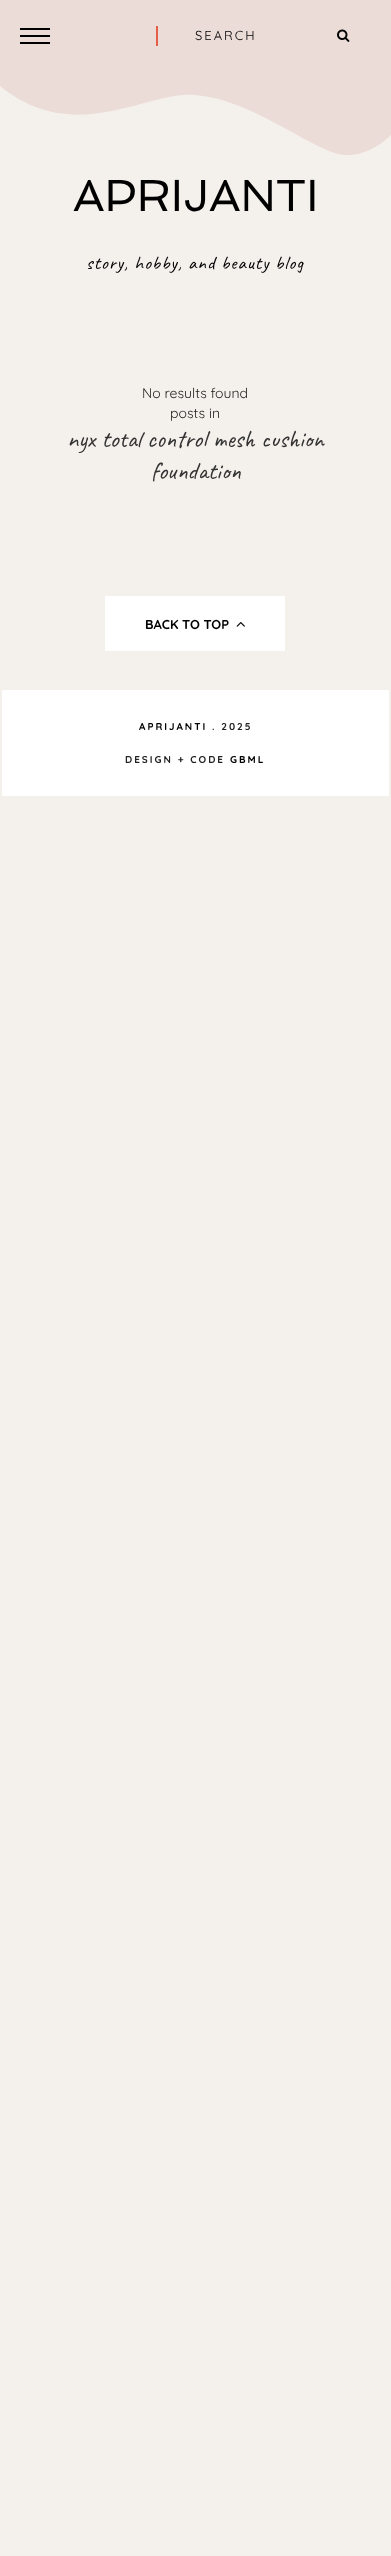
<?xml version="1.0" encoding="UTF-8"?>
<svg xmlns="http://www.w3.org/2000/svg" width="391" height="2556">
    <defs>
        <clipPath id="clip1"><rect x="0" y="0" width="391" height="155"/></clipPath>
    </defs>
    <rect width="100%" height="100%" fill="#F4F1EC"/>
    <g clip-path="url(#clip1)">
        <path d="M 0 86 C 75 147 146 91 195 95 C 245 99 295 137 329 151 C 362 166 391 135 391 135 V 0 H 0 Z" fill="#ECDCD8"/>
    </g>
    <rect x="20" y="28" width="30" height="2" fill="#000000"/>
    <rect x="20" y="35" width="30" height="2" fill="#000000"/>
    <rect x="20" y="42" width="30" height="2" fill="#000000"/>
    <rect x="156" y="26" width="2" height="20" fill="#E55E47"/>
    <text x="195" y="40" font-family="Quicksand" font-size="13" letter-spacing="2" fill="#000000">SEARCH</text>
    <image x="337" y="29" width="13" height="13" href="img_01.png"/>
    <text x="73" y="211" font-family="Spinnaker" font-size="45" fill="#000000">APRIJANTI</text>
    <text x="86" y="269" font-family="Caveat" font-size="19" letter-spacing="1" fill="#000000">story, hobby, and beauty blog</text>
    <text x="142" y="398" font-family="Quicksand" font-size="14" fill="#222222">No results found</text>
    <text x="170" y="418" font-family="Quicksand" font-size="14" fill="#222222">posts in</text>
    <text x="67" y="447" font-family="Caveat" font-size="25" fill="#333333">nyx total control mesh cushion</text>
    <text x="151" y="479" font-family="Caveat" font-size="25" fill="#333333">foundation</text>
    <rect x="105" y="596" width="180" height="55" fill="#FFFFFF"/>
    <text x="145" y="629" font-family="Quicksand" font-size="13" font-weight="700" fill="#000000">BACK TO TOP</text>
    <image x="236" y="622" width="9" height="5" href="img_02.png"/>
    <rect x="2" y="690" width="387" height="106" fill="#FFFFFF"/>
    <text x="139" y="730" font-family="Quicksand" font-size="10" font-weight="700" letter-spacing="2" fill="#000000">APRIJANTI</text>
    <text x="212" y="730" font-family="Quicksand" font-size="10" font-weight="700" letter-spacing="2" fill="#222222">. 2025</text>
    <text x="125" y="763" font-family="Quicksand" font-size="10" font-weight="700" letter-spacing="2" fill="#222222">DESIGN + CODE</text>
    <text x="230" y="763" font-family="Quicksand" font-size="10" font-weight="700" letter-spacing="2" fill="#000000">GBML</text>
</svg>
